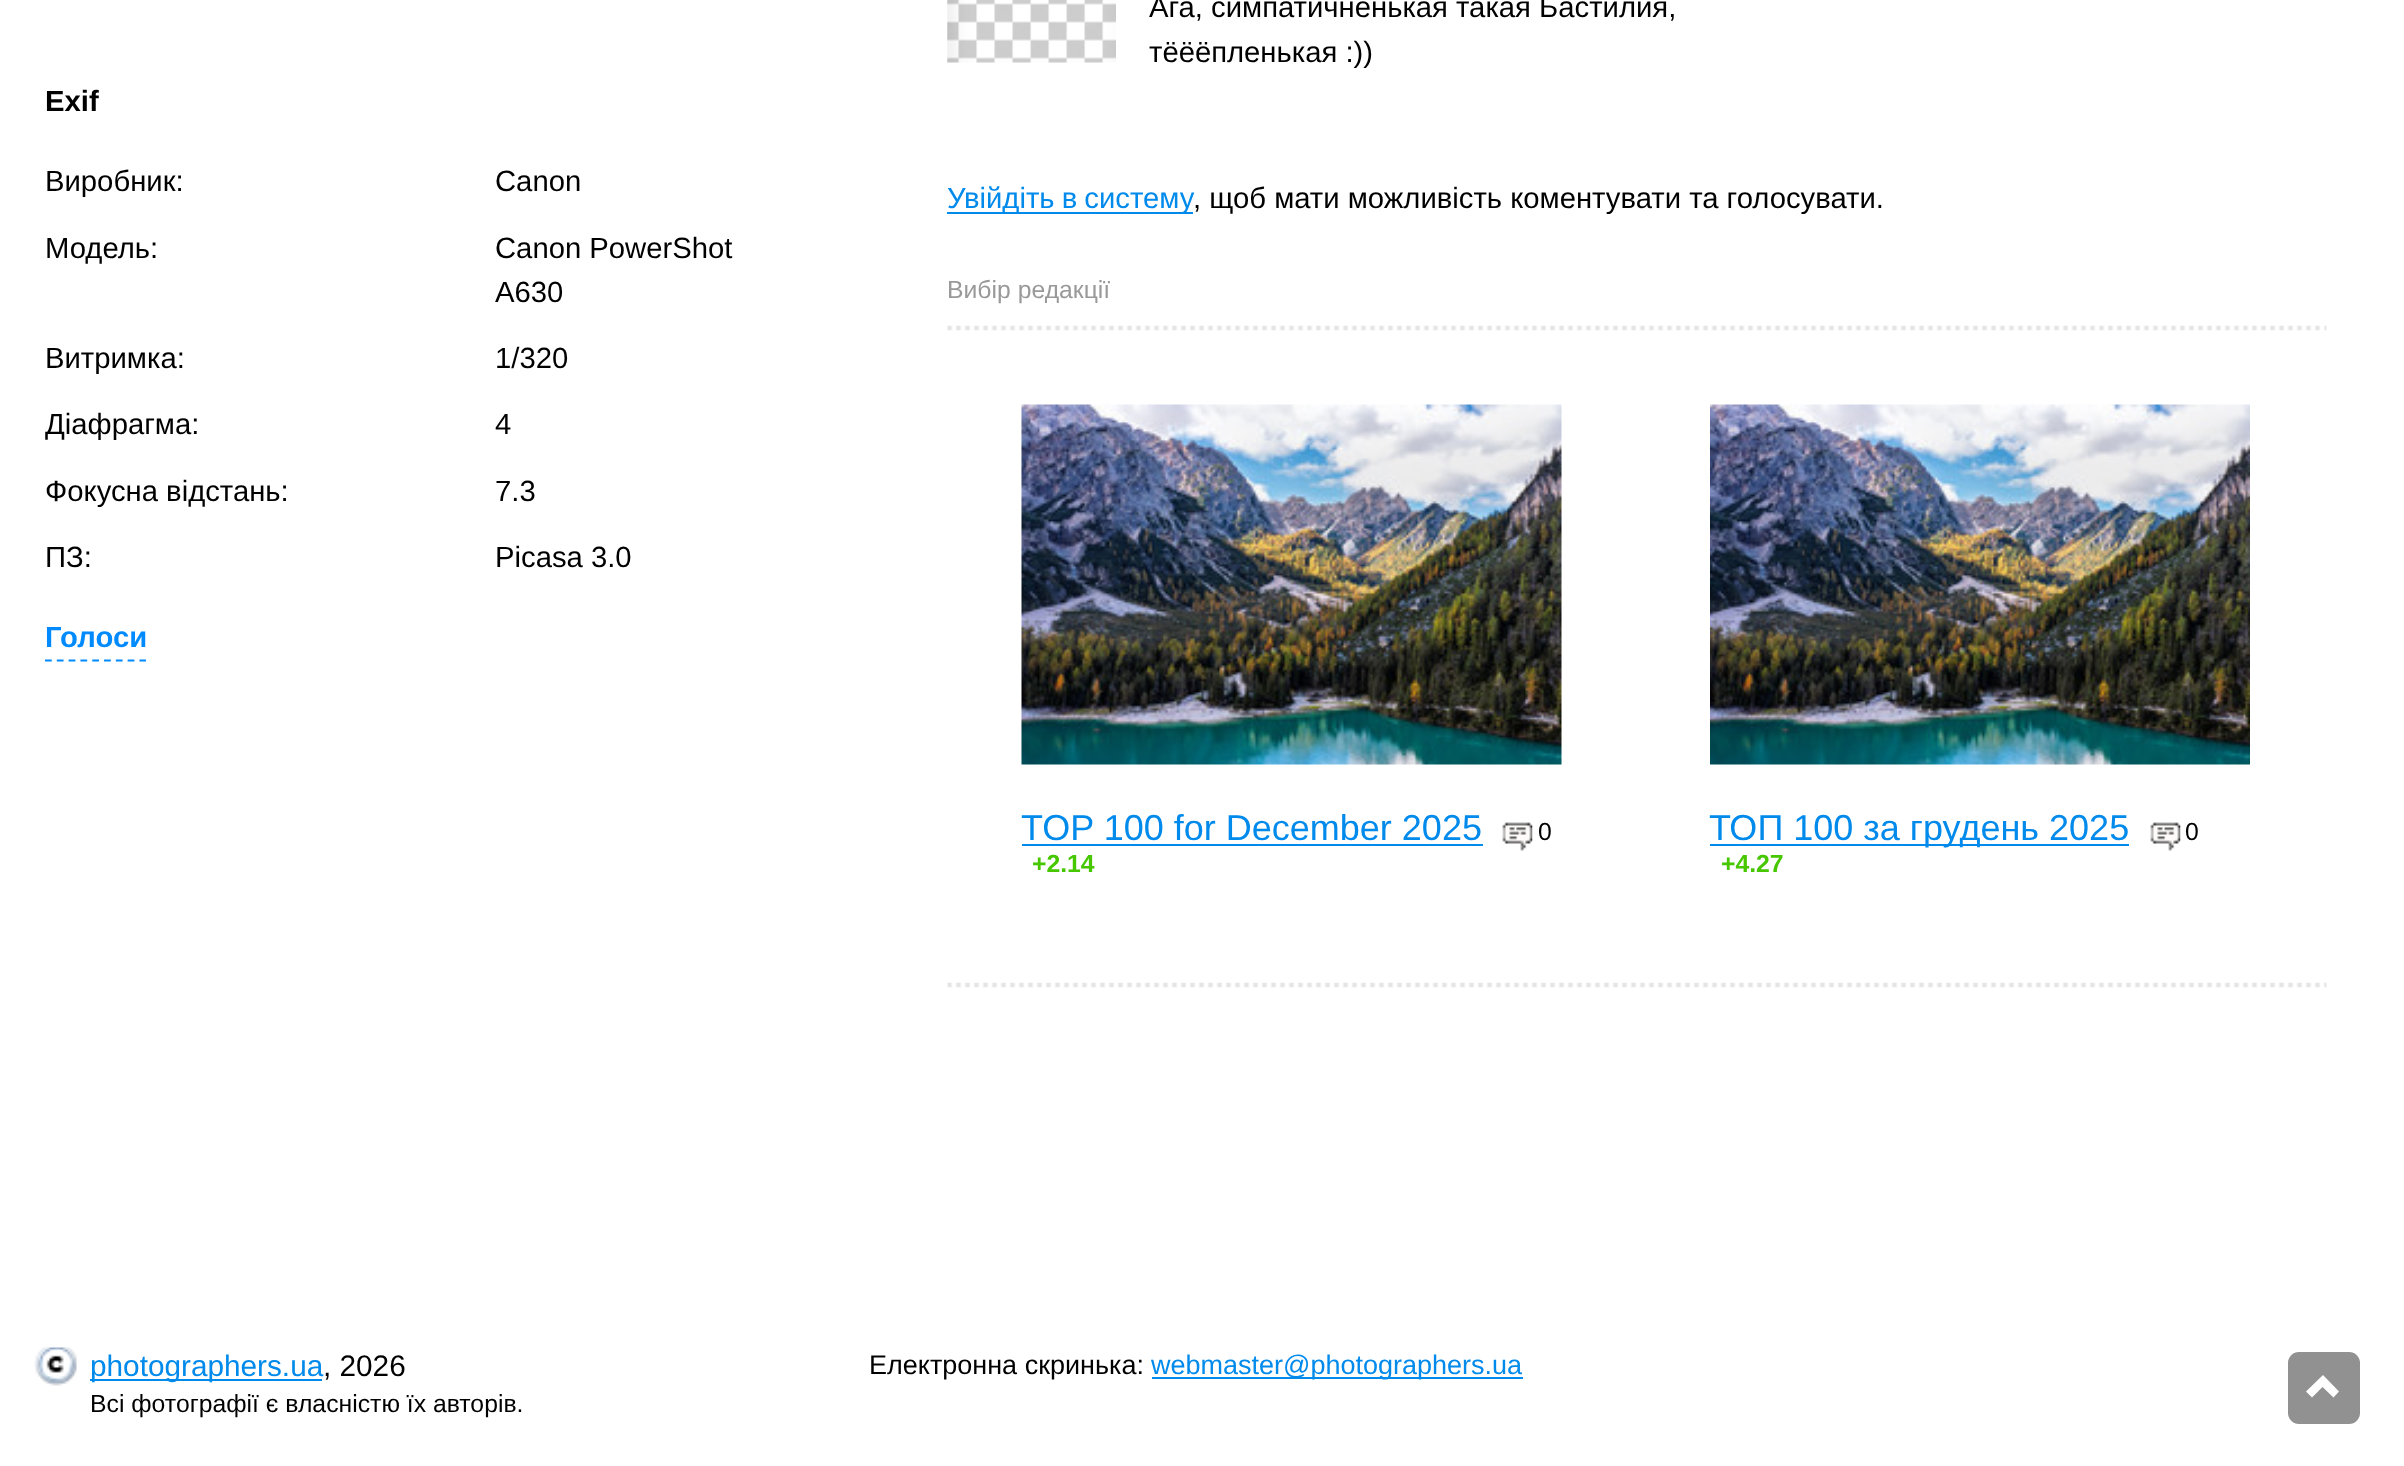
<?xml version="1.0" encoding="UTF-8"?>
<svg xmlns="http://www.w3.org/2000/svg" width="2404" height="1466">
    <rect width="100%" height="100%" fill="#FFFFFF"/>
    <text x="45" y="111" font-family="Liberation Sans" font-size="29.25" font-weight="700" fill="#000000">Exif</text>
    <text x="45" y="191" font-family="Liberation Sans" font-size="29.25" fill="#000000">Виробник:</text>
    <text x="495" y="191" font-family="Liberation Sans" font-size="29.25" fill="#000000">Canon</text>
    <text x="45" y="258" font-family="Liberation Sans" font-size="29.25" fill="#000000">Модель:</text>
    <text font-family="Liberation Sans" font-size="29.25" fill="#000000">
        <tspan x="495" y="258">Canon PowerShot</tspan>
        <tspan x="495" y="302">A630</tspan>
    </text>
    <text x="45" y="368" font-family="Liberation Sans" font-size="29.25" fill="#000000">Витримка:</text>
    <text x="495" y="368" font-family="Liberation Sans" font-size="29.25" fill="#000000">1/320</text>
    <text x="45" y="434" font-family="Liberation Sans" font-size="29.25" fill="#000000">Діафрагма:</text>
    <text x="495" y="434" font-family="Liberation Sans" font-size="29.25" fill="#000000">4</text>
    <text x="45" y="501" font-family="Liberation Sans" font-size="29.25" fill="#000000">Фокусна відстань:</text>
    <text x="495" y="501" font-family="Liberation Sans" font-size="29.25" fill="#000000">7.3</text>
    <text x="45" y="567" font-family="Liberation Sans" font-size="29.25" fill="#000000">ПЗ:</text>
    <text x="495" y="567" font-family="Liberation Sans" font-size="29.25" fill="#000000">Picasa 3.0</text>
    <path d="M 45 660.5 H 146" fill="none" stroke="#008AFF" stroke-width="2.2" stroke-dasharray="6.75 5.06"/>
    <text x="45" y="647" font-family="Liberation Sans" font-size="29.25" font-weight="700" fill="#008AFF">Голоси</text>
    <image x="947" y="0" width="169" height="63" href="img_01.png"/>
    <text font-family="Liberation Sans" font-size="29.25" fill="#000000">
        <tspan x="1149" y="17">Ага, симпатичненькая такая Бастилия,</tspan>
        <tspan x="1149" y="62">тёёёпленькая :))</tspan>
    </text>
    <rect x="947" y="212" width="246" height="2" fill="#008AEB"/>
    <text x="947" y="208" word-spacing="-1" font-family="Liberation Sans" font-size="29.25" fill="#008AEB">Увійдіть в систему</text>
    <text x="1193" y="208" font-family="Liberation Sans" font-size="29.25" fill="#000000">, щоб мати можливість коментувати та голосувати.</text>
    <text x="947" y="298" font-family="Liberation Sans" font-size="24.75" fill="#999999">Вибір редакції</text>
    <image x="947" y="325" width="1380" height="6" href="img_02.png"/>
    <image x="1021" y="404" width="541" height="361" href="img_03.png"/>
    <text x="1021" y="840" font-family="Liberation Sans" font-size="36" fill="#008AEB">TOP 100 for December 2025</text>
    <rect x="1022" y="844" width="461" height="2" fill="#008AEB"/>
    <image x="1502" y="822" width="31" height="29" href="img_04.png"/>
    <text x="1538" y="840" font-family="Liberation Sans" font-size="24.75" fill="#000000">0</text>
    <text x="1032" y="872" font-family="Liberation Sans" font-size="24.75" font-weight="700" fill="#46C700">+2.14</text>
    <image x="1710" y="404" width="540" height="361" href="img_05.png"/>
    <rect x="1710" y="844" width="419" height="2" fill="#008AEB"/>
    <text x="1709" y="840" font-family="Liberation Sans" font-size="36" fill="#008AEB">ТОП 100 за грудень 2025</text>
    <image x="2150" y="822" width="31" height="29" href="img_06.png"/>
    <text x="2185" y="840" font-family="Liberation Sans" font-size="24.75" fill="#000000">0</text>
    <text x="1721" y="872" font-family="Liberation Sans" font-size="24.75" font-weight="700" fill="#46C700">+4.27</text>
    <image x="947" y="982" width="1380" height="6" href="img_02.png"/>
    <image x="34" y="1347" width="43" height="39" href="img_07.png"/>
    <rect x="90" y="1379" width="232" height="2" fill="#008AEB"/>
    <text x="90" y="1376" font-family="Liberation Sans" font-size="29.75" fill="#008AEB">photographers.ua</text>
    <text x="323" y="1376" font-family="Liberation Sans" font-size="29.75" fill="#000000">, 2026</text>
    <text x="90" y="1412" font-family="Liberation Sans" font-size="24.75" fill="#000000">Всі фотографії є власністю їх авторів.</text>
    <text x="869" y="1374" font-family="Liberation Sans" font-size="27" fill="#000000">Електронна скринька:</text>
    <rect x="1152" y="1377" width="371" height="2" fill="#008AEB"/>
    <text x="1151" y="1374" font-family="Liberation Sans" font-size="27" fill="#008AEB">webmaster@photographers.ua</text>
    <rect x="2288" y="1352" width="72" height="72" rx="11" fill="#919191"/>
    <path d="M 2339 1391.5 L 2333.5 1397.5 L 2322.5 1387 L 2312 1397.5 L 2306 1391.5 L 2323 1375 Z" fill="#FFFFFF"/>
</svg>
